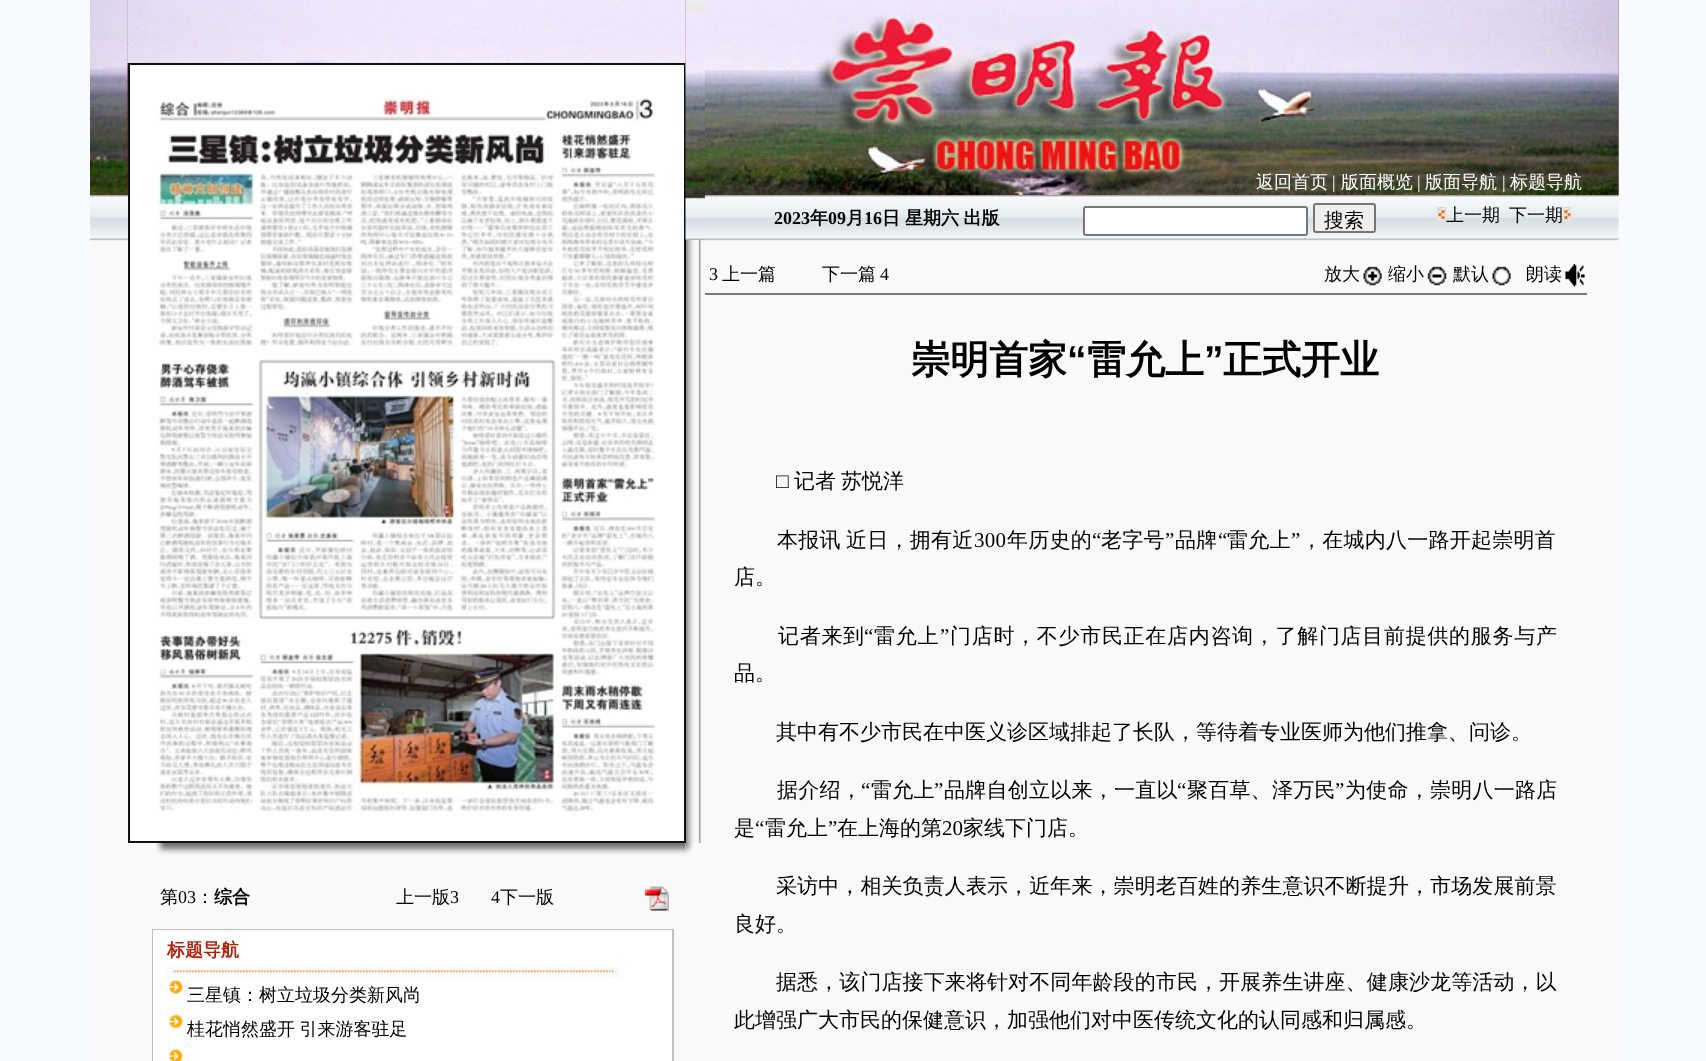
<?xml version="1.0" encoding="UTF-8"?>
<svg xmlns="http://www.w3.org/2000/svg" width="1706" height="1061">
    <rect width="100%" height="100%" fill="#F7FAFF"/>
    <image x="90" y="0" width="1529" height="1061" href="img_01.png"/>
    <image x="127" y="0" width="559" height="63" href="img_03.png"/>
    <image x="90" y="0" width="38" height="195" href="img_02.png"/>
    <image x="127" y="0" width="530" height="63" href="img_04.png"/>
    <image x="685" y="0" width="16" height="843" href="img_05.png"/>
    <rect x="129" y="64" width="556" height="778" fill="#FFFFFF" stroke="#111111" stroke-width="2"/>
    <image x="685" y="0" width="20" height="240" href="img_06.png"/>
    <image x="157" y="97" width="499" height="715" href="img_07.png"/>
    <image x="155" y="843" width="531" height="12" href="img_08.png"/>
    <image x="685" y="843" width="9" height="11" href="img_09.png"/>
    <text x="160" y="903" font-family="WenQuanYi Zen Hei" font-size="18" font-weight="500" fill="#000000">第</text>
    <text x="178" y="903" font-family="Liberation Serif" font-size="18" fill="#000000">03</text>
    <text x="196" y="903" font-family="WenQuanYi Zen Hei" font-size="18" font-weight="500" fill="#000000">：</text>
    <text x="214" y="903" font-family="WenQuanYi Zen Hei" font-size="18" font-weight="700" fill="#000000">综合</text>
    <text x="396" y="903" font-family="WenQuanYi Zen Hei" font-size="18" font-weight="500" fill="#000000">上一版</text>
    <text x="450" y="903" font-family="Liberation Serif" font-size="18" fill="#000000">3</text>
    <text x="491" y="903" font-family="Liberation Serif" font-size="18" fill="#000000">4</text>
    <text x="500" y="903" font-family="WenQuanYi Zen Hei" font-size="18" font-weight="500" fill="#000000">下一版</text>
    <image x="645" y="886" width="24" height="25" href="img_10.png"/>
    <rect x="153" y="930" width="520" height="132" fill="none" stroke="#C0C0C0" stroke-width="2"/>
    <rect x="153" y="930" width="519" height="131" fill="#FFFFFF"/>
    <text x="167" y="956" font-family="WenQuanYi Zen Hei" font-size="18" font-weight="700" fill="#B52008">标题导航</text>
    <image x="165" y="966" width="456" height="12" href="img_11.png"/>
    <image x="169" y="980" width="14" height="14" href="img_12.png"/>
    <text x="187" y="1001" font-family="WenQuanYi Zen Hei" font-size="18" font-weight="500" fill="#000000">三星镇：树立垃圾分类新风尚</text>
    <image x="169" y="1015" width="14" height="13" href="img_13.png"/>
    <text x="187" y="1035" word-spacing="-1" font-family="WenQuanYi Zen Hei" font-size="18" font-weight="500" fill="#000000">桂花悄然盛开 引来游客驻足</text>
    <image x="169" y="1049" width="14" height="12" href="img_14.png"/>
    <image x="705" y="0" width="914" height="195" href="img_15.png"/>
    <text x="1256" y="188" font-family="WenQuanYi Zen Hei" font-size="18" font-weight="500" fill="#FFFFFF">返回首页</text>
    <text x="1332" y="188" font-family="Liberation Serif" font-size="18" fill="#FFFFFF">|</text>
    <text x="1341" y="188" font-family="WenQuanYi Zen Hei" font-size="18" font-weight="500" fill="#FFFFFF">版面概览</text>
    <text x="1417" y="188" font-family="Liberation Serif" font-size="18" fill="#FFFFFF">|</text>
    <text x="1425" y="188" font-family="WenQuanYi Zen Hei" font-size="18" font-weight="500" fill="#FFFFFF">版面导航</text>
    <text x="1502" y="188" font-family="Liberation Serif" font-size="18" fill="#FFFFFF">|</text>
    <text x="1510" y="188" font-family="WenQuanYi Zen Hei" font-size="18" font-weight="500" fill="#FFFFFF">标题导航</text>
    <text x="774" y="224" font-family="Liberation Serif" font-size="18" font-weight="700" fill="#000000">2023</text>
    <text x="810" y="224" font-family="WenQuanYi Zen Hei" font-size="18" font-weight="700" fill="#000000">年</text>
    <text x="828" y="224" font-family="Liberation Serif" font-size="18" font-weight="700" fill="#000000">09</text>
    <text x="846" y="224" font-family="WenQuanYi Zen Hei" font-size="18" font-weight="700" fill="#000000">月</text>
    <text x="864" y="224" font-family="Liberation Serif" font-size="18" font-weight="700" fill="#000000">16</text>
    <text x="882" y="224" font-family="WenQuanYi Zen Hei" font-size="18" font-weight="700" fill="#000000">日</text>
    <text x="905" y="224" word-spacing="-1" font-family="WenQuanYi Zen Hei" font-size="18" font-weight="700" fill="#000000">星期六 出版</text>
    <rect x="1084" y="207" width="223" height="28" rx="2" fill="#FFFFFF" stroke="#767676" stroke-width="2"/>
    <rect x="1314" y="204" width="61" height="28" rx="2" fill="#EFEFEF" stroke="#767676" stroke-width="2"/>
    <text x="1324" y="227" font-family="WenQuanYi Zen Hei" font-size="20" font-weight="500" fill="#000000">搜索</text>
    <image x="1437" y="207" width="9" height="14" href="img_16.png"/>
    <text x="1446" y="221" font-family="WenQuanYi Zen Hei" font-size="18" font-weight="500" fill="#000000">上一期</text>
    <text x="1509" y="221" font-family="WenQuanYi Zen Hei" font-size="18" font-weight="500" fill="#000000">下一期</text>
    <image x="1563" y="207" width="8" height="14" href="img_17.png"/>
    <rect x="705" y="293" width="882" height="2" fill="#787878"/>
    <text x="709" y="280" font-family="Liberation Serif" font-size="18" fill="#000000">3</text>
    <text x="722" y="280" font-family="WenQuanYi Zen Hei" font-size="18" font-weight="500" fill="#000000">上一篇</text>
    <text x="822" y="280" font-family="WenQuanYi Zen Hei" font-size="18" font-weight="500" fill="#000000">下一篇</text>
    <text x="880" y="280" font-family="Liberation Serif" font-size="18" fill="#000000">4</text>
    <text x="1324" y="280" font-family="WenQuanYi Zen Hei" font-size="18" font-weight="500" fill="#000000">放大</text>
    <image x="1363" y="266" width="19" height="20" href="img_18.png"/>
    <text x="1388" y="280" font-family="WenQuanYi Zen Hei" font-size="18" font-weight="500" fill="#000000">缩小</text>
    <image x="1427" y="266" width="20" height="20" href="img_19.png"/>
    <text x="1453" y="280" font-family="WenQuanYi Zen Hei" font-size="18" font-weight="500" fill="#000000">默认</text>
    <image x="1492" y="266" width="19" height="20" href="img_20.png"/>
    <text x="1526" y="280" font-family="WenQuanYi Zen Hei" font-size="18" font-weight="500" fill="#000000">朗读</text>
    <image x="1565" y="264" width="20" height="23" href="img_21.png"/>
    <text x="911" y="373" font-family="WenQuanYi Zen Hei" font-size="39" font-weight="700" fill="#000000">崇明首家</text>
    <text x="1067" y="373" font-family="Liberation Sans" font-size="39" font-weight="700" fill="#000000">“</text>
    <text x="1087" y="373" font-family="WenQuanYi Zen Hei" font-size="39" font-weight="700" fill="#000000">雷允上</text>
    <text x="1204" y="373" font-family="Liberation Sans" font-size="39" font-weight="700" fill="#000000">”</text>
    <text x="1223" y="373" font-family="WenQuanYi Zen Hei" font-size="39" font-weight="700" fill="#000000">正式开业</text>
    <text x="776" y="488" font-family="Liberation Serif" font-size="21" fill="#000000">□</text>
    <text x="794" y="488" font-family="WenQuanYi Zen Hei" font-size="21" font-weight="500" fill="#000000">记者</text>
    <text x="841" y="488" font-family="WenQuanYi Zen Hei" font-size="21" font-weight="500" fill="#000000">苏悦洋</text>
    <text x="777" y="547" font-family="WenQuanYi Zen Hei" font-size="21" font-weight="500" letter-spacing="0.25" fill="#000000">本报讯</text>
    <text x="846" y="547" font-family="WenQuanYi Zen Hei" font-size="21" font-weight="500" letter-spacing="0.25" fill="#000000">近日，拥有近</text>
    <text x="974" y="547" font-family="Liberation Serif" font-size="21" letter-spacing="0.25" fill="#000000">300</text>
    <text x="1007" y="547" font-family="WenQuanYi Zen Hei" font-size="21" font-weight="500" letter-spacing="0.25" fill="#000000">年历史的</text>
    <text x="1092" y="547" font-family="Liberation Serif" font-size="21" letter-spacing="0.25" fill="#000000">“</text>
    <text x="1101" y="547" font-family="WenQuanYi Zen Hei" font-size="21" font-weight="500" letter-spacing="0.25" fill="#000000">老字号</text>
    <text x="1165" y="547" font-family="Liberation Serif" font-size="21" letter-spacing="0.25" fill="#000000">”</text>
    <text x="1175" y="547" font-family="WenQuanYi Zen Hei" font-size="21" font-weight="500" letter-spacing="0.25" fill="#000000">品牌</text>
    <text x="1218" y="547" font-family="Liberation Serif" font-size="21" letter-spacing="0.25" fill="#000000">“</text>
    <text x="1227" y="547" font-family="WenQuanYi Zen Hei" font-size="21" font-weight="500" letter-spacing="0.25" fill="#000000">雷允上</text>
    <text x="1291" y="547" font-family="Liberation Serif" font-size="21" letter-spacing="0.25" fill="#000000">”</text>
    <text x="1301" y="547" font-family="WenQuanYi Zen Hei" font-size="21" font-weight="500" letter-spacing="0.25" fill="#000000">，在城内八一路开起崇明首</text>
    <text x="734" y="584" font-family="WenQuanYi Zen Hei" font-size="21" font-weight="500" fill="#000000">店。</text>
    <text x="778" y="643" font-family="WenQuanYi Zen Hei" font-size="21" font-weight="500" letter-spacing="0.7" fill="#000000">记者来到</text>
    <text x="864" y="643" font-family="Liberation Serif" font-size="21" letter-spacing="0.7" fill="#000000">“</text>
    <text x="874" y="643" font-family="WenQuanYi Zen Hei" font-size="21" font-weight="500" letter-spacing="0.7" fill="#000000">雷允上</text>
    <text x="940" y="643" font-family="Liberation Serif" font-size="21" letter-spacing="0.7" fill="#000000">”</text>
    <text x="950" y="643" font-family="WenQuanYi Zen Hei" font-size="21" font-weight="500" letter-spacing="0.7" fill="#000000">门店时，不少市民正在店内咨询，了解门店目前提供的服务与产</text>
    <text x="734" y="680" font-family="WenQuanYi Zen Hei" font-size="21" font-weight="500" fill="#000000">品。</text>
    <text x="776" y="739" font-family="WenQuanYi Zen Hei" font-size="21" font-weight="500" fill="#000000">其中有不少市民在中医义诊区域排起了长队，等待着专业医师为他们推拿、问诊。</text>
    <text x="777" y="797" font-family="WenQuanYi Zen Hei" font-size="21" font-weight="500" letter-spacing="0.25" fill="#000000">据介绍，</text>
    <text x="861" y="797" font-family="Liberation Serif" font-size="21" letter-spacing="0.25" fill="#000000">“</text>
    <text x="871" y="797" font-family="WenQuanYi Zen Hei" font-size="21" font-weight="500" letter-spacing="0.25" fill="#000000">雷允上</text>
    <text x="934" y="797" font-family="Liberation Serif" font-size="21" letter-spacing="0.25" fill="#000000">”</text>
    <text x="944" y="797" font-family="WenQuanYi Zen Hei" font-size="21" font-weight="500" letter-spacing="0.25" fill="#000000">品牌自创立以来，一直以</text>
    <text x="1177" y="797" font-family="Liberation Serif" font-size="21" letter-spacing="0.25" fill="#000000">“</text>
    <text x="1187" y="797" font-family="WenQuanYi Zen Hei" font-size="21" font-weight="500" letter-spacing="0.25" fill="#000000">聚百草、泽万民</text>
    <text x="1335" y="797" font-family="Liberation Serif" font-size="21" letter-spacing="0.25" fill="#000000">”</text>
    <text x="1345" y="797" font-family="WenQuanYi Zen Hei" font-size="21" font-weight="500" letter-spacing="0.25" fill="#000000">为使命，崇明八一路店</text>
    <text x="734" y="835" font-family="WenQuanYi Zen Hei" font-size="21" font-weight="500" fill="#000000">是</text>
    <text x="755" y="835" font-family="Liberation Serif" font-size="21" fill="#000000">“</text>
    <text x="765" y="835" font-family="WenQuanYi Zen Hei" font-size="21" font-weight="500" fill="#000000">雷允上</text>
    <text x="828" y="835" font-family="Liberation Serif" font-size="21" fill="#000000">”</text>
    <text x="837" y="835" font-family="WenQuanYi Zen Hei" font-size="21" font-weight="500" fill="#000000">在上海的第</text>
    <text x="942" y="835" font-family="Liberation Serif" font-size="21" fill="#000000">20</text>
    <text x="963" y="835" font-family="WenQuanYi Zen Hei" font-size="21" font-weight="500" fill="#000000">家线下门店。</text>
    <text x="776" y="893" font-family="WenQuanYi Zen Hei" font-size="21" font-weight="500" letter-spacing="0.1" fill="#000000">采访中，相关负责人表示，近年来，崇明老百姓的养生意识不断提升，市场发展前景</text>
    <text x="734" y="931" font-family="WenQuanYi Zen Hei" font-size="21" font-weight="500" fill="#000000">良好。</text>
    <text x="776" y="989" font-family="WenQuanYi Zen Hei" font-size="21" font-weight="500" letter-spacing="0.1" fill="#000000">据悉，该门店接下来将针对不同年龄段的市民，开展养生讲座、健康沙龙等活动，以</text>
    <text x="734" y="1027" font-family="WenQuanYi Zen Hei" font-size="21" font-weight="500" fill="#000000">此增强广大市民的保健意识，加强他们对中医传统文化的认同感和归属感。</text>
</svg>
